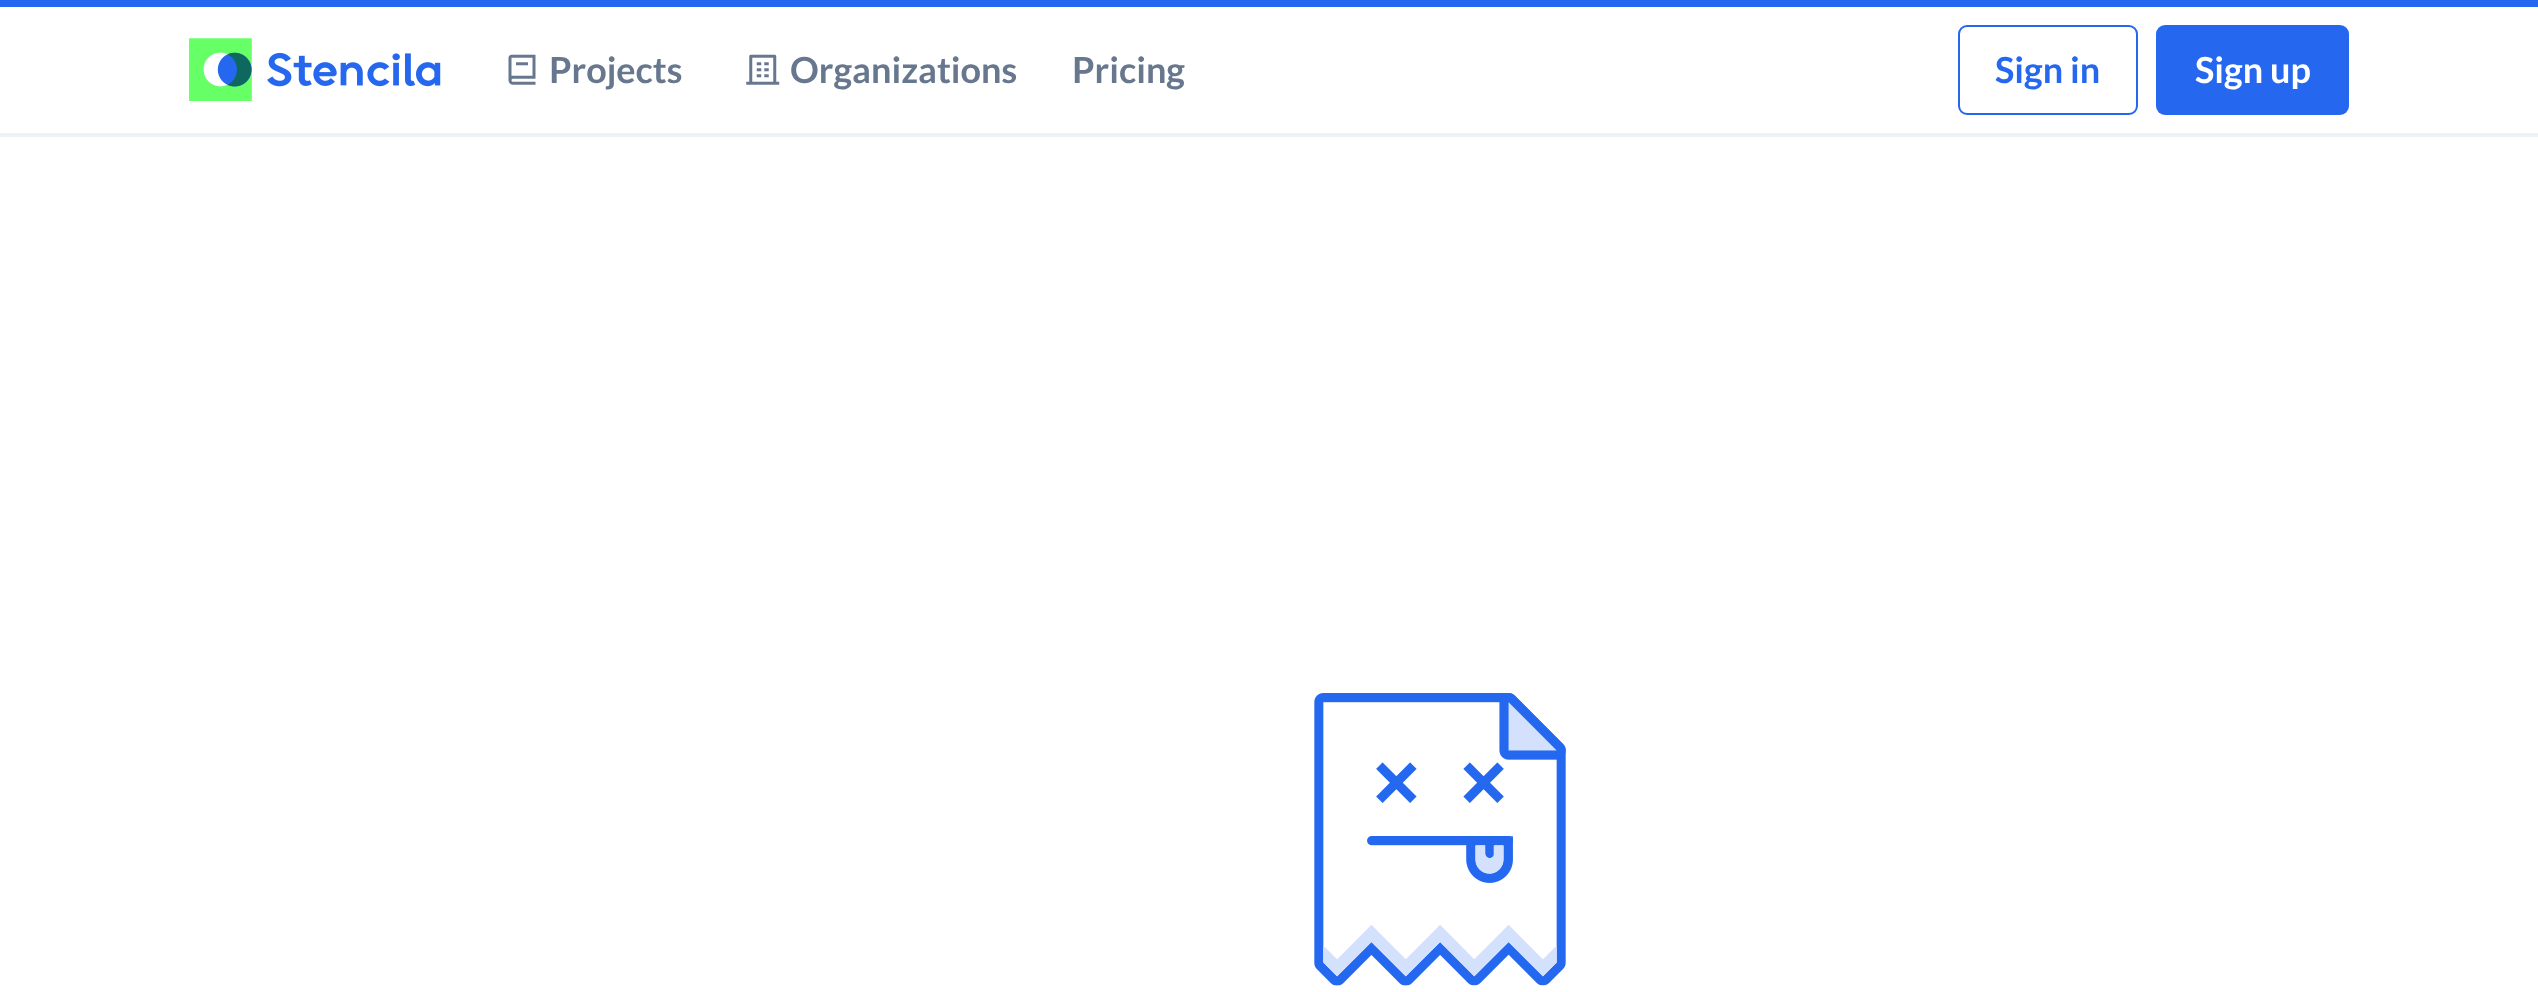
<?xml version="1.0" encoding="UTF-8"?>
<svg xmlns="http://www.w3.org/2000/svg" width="2538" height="992">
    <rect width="100%" height="100%" fill="#FFFFFF"/>
    <rect x="0" y="133" width="2538" height="4" fill="#EDF2F7"/>
    <rect x="0" y="0" width="2538" height="7" fill="#2568EF"/>
    <image x="189" y="38" width="252" height="63" href="img_01.png"/>
    <image x="508" y="54" width="28" height="31" href="img_02.png"/>
    <text x="549" y="83" font-family="Lato" font-size="36" font-weight="700" fill="#67778E">Projects</text>
    <image x="746" y="54" width="34" height="31" href="img_03.png"/>
    <text x="790" y="83" font-family="Lato" font-size="36" font-weight="700" fill="#67778E">Organizations</text>
    <text x="1072" y="83" font-family="Lato" font-size="36" font-weight="700" fill="#67778E">Pricing</text>
    <rect x="1959" y="26" width="178" height="88" rx="8" fill="none" stroke="#2568EF" stroke-width="2"/>
    <text x="1995" y="83" font-family="Lato" font-size="36" font-weight="700" fill="#2568EF">Sign in</text>
    <rect x="2156" y="25" width="193" height="90" rx="9" fill="#2568EF"/>
    <text x="2195" y="83" font-family="Lato" font-size="36" font-weight="700" fill="#FFFFFF">Sign up</text>
    <image x="1314" y="693" width="252" height="293" href="img_04.png"/>
</svg>
